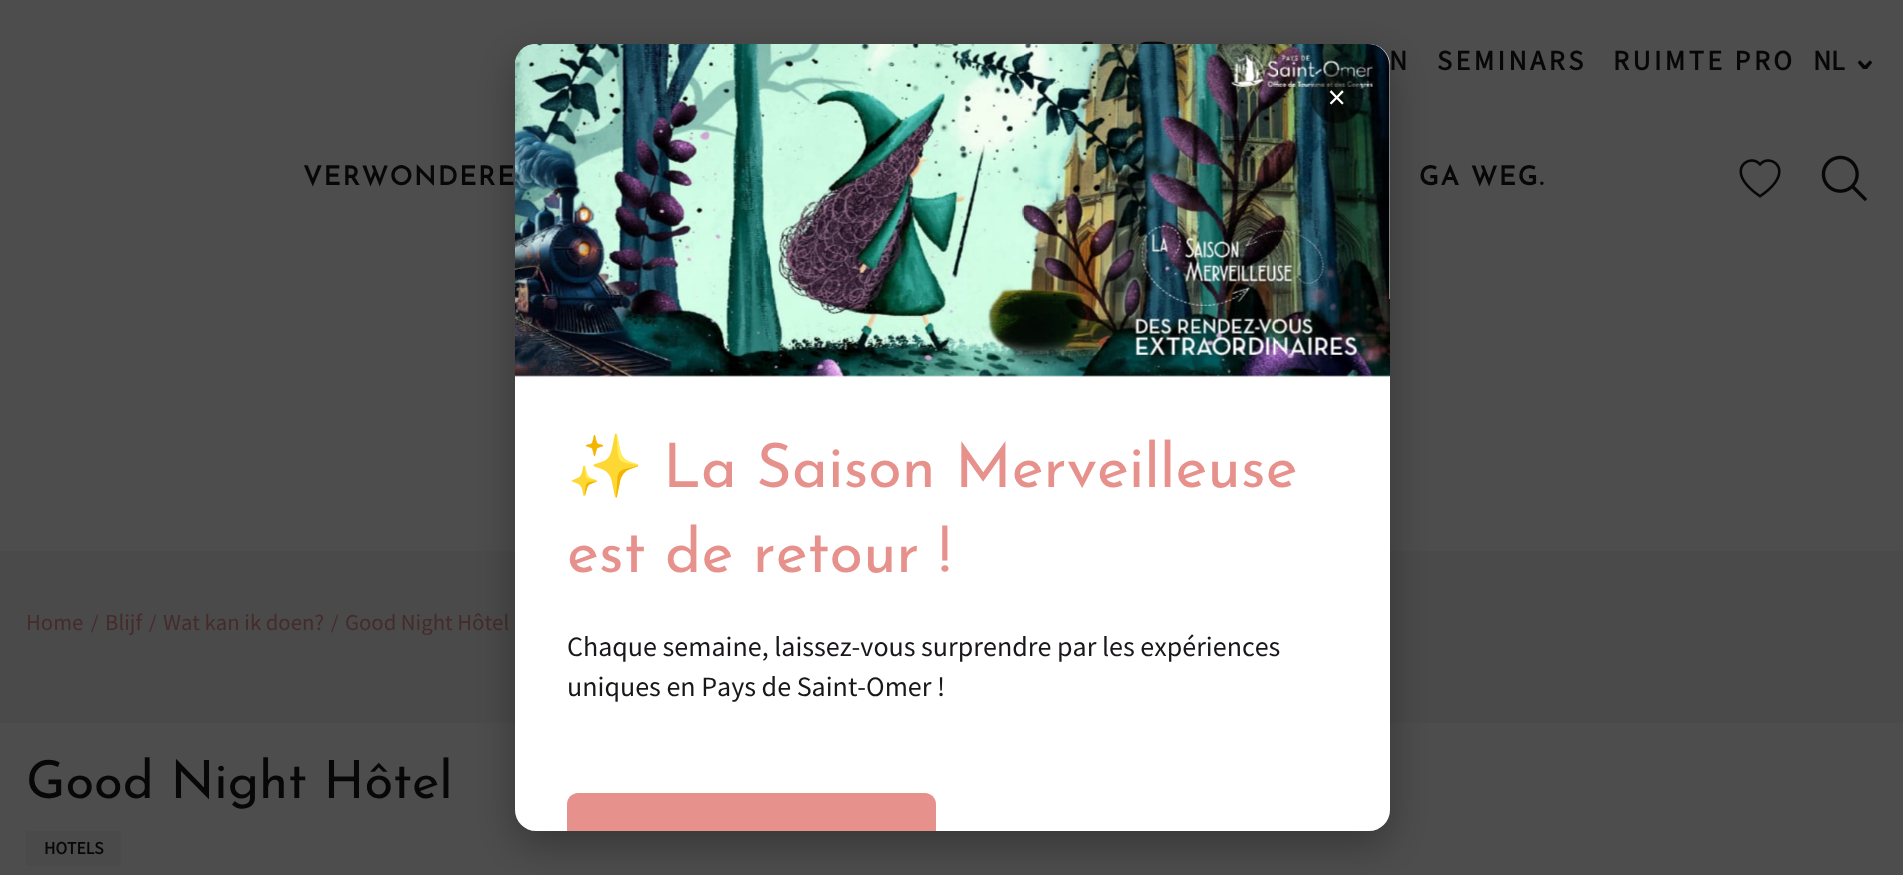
<?xml version="1.0" encoding="UTF-8"?>
<svg xmlns="http://www.w3.org/2000/svg" width="1903" height="875">
    <style>*{font-kerning:none!important;font-variant-ligatures:none!important}</style>
    <defs>
        <filter id="blur1" x="-50%" y="-200%" width="200%" height="500%"><feGaussianBlur stdDeviation="21"/></filter>
    </defs>
    <rect width="100%" height="100%" fill="#4D4D4D"/>
    <image x="1081" y="41" width="12" height="3" href="img_01.png"/>
    <image x="1140" y="41" width="26" height="3" href="img_02.png"/>
    <text x="1389" y="70" font-family="Source Sans Pro" font-size="28" font-weight="700" letter-spacing="3.5" fill="#080708">N</text>
    <text x="1437" y="70" font-family="Source Sans Pro" font-size="28" font-weight="700" letter-spacing="3.5" fill="#080708">SEMINARS</text>
    <text x="1613" y="70" font-family="Source Sans Pro" font-size="28" font-weight="700" letter-spacing="3.5" fill="#080708">RUIMTE PRO</text>
    <text x="1813" y="70" font-family="Source Sans Pro" font-size="28" font-weight="700" fill="#080708">NL</text>
    <text x="1853" y="93" font-family="Source Sans Pro" font-size="42" font-weight="700" fill="#080708">ˇ</text>
    <text x="303" y="185" font-family="Josefin Sans" font-size="26.25" font-weight="700" letter-spacing="1.75" fill="#080708">VERWONDERE</text>
    <text x="1419" y="185" font-family="Josefin Sans" font-size="26.25" font-weight="700" letter-spacing="1.75" fill="#080708">GA WEG.</text>
    <image x="1739" y="159" width="42" height="39" href="img_03.png"/>
    <image x="1821" y="155" width="47" height="47" href="img_04.png"/>
    <rect x="0" y="551" width="1903" height="172" fill="#4A4A4A"/>
    <text x="26" y="630" font-family="Source Sans Pro" font-size="22.75" fill="#452C2A">Home</text>
    <text x="91" y="632" font-family="Liberation Serif" font-size="26.25" fill="#452C2A">/</text>
    <text x="105" y="630" font-family="Source Sans Pro" font-size="22.75" fill="#452C2A">Blijf</text>
    <text x="149" y="632" font-family="Liberation Serif" font-size="26.25" fill="#452C2A">/</text>
    <text x="163" y="630" font-family="Source Sans Pro" font-size="22.75" fill="#452C2A">Wat kan ik doen?</text>
    <text x="331" y="632" font-family="Liberation Serif" font-size="26.25" fill="#452C2A">/</text>
    <text x="345" y="630" font-family="Source Sans Pro" font-size="22.75" fill="#452C2A">Good Night Hôtel</text>
    <text x="26" y="798" font-family="Josefin Sans" font-size="52.5" font-weight="100" fill="#080708">Good Night Hôtel</text>
    <rect x="26" y="831" width="95" height="35" fill="#4A4A4A"/>
    <text x="44" y="854" font-family="Source Sans Pro" font-size="17.5" font-weight="700" fill="#080708">HOTELS</text>
    <rect x="515" y="58" width="875" height="787" rx="21" fill="#000000" fill-opacity="0.3" filter="url(#blur1)"/>
    <rect x="515" y="44" width="875" height="787" rx="21" fill="#FFFFFF"/>
    <image x="515" y="44" width="875" height="333" href="img_05.png"/>
    <rect x="1311" y="70" width="52" height="53" rx="26" fill="#000000" fill-opacity="0.5"/>
    <text x="1328" y="109" font-family="Source Sans Pro" font-size="35" fill="#FFFFFF">×</text>
    <text x="567" y="487" font-family="Noto Color Emoji" font-size="61.25" fill="#E7918D">✨</text>
    <text x="663" y="487" font-family="Josefin Sans" font-size="61.25" font-weight="100" fill="#E7918D">La Saison Merveilleuse</text>
    <text x="567" y="572" font-family="Josefin Sans" font-size="61.25" font-weight="100" fill="#E7918D">est de retour !</text>
    <text font-family="Source Sans Pro" font-size="28" fill="#1A171B">
        <tspan x="567" y="656">Chaque semaine, laissez-vous surprendre par les expériences</tspan>
        <tspan x="567" y="696">uniques en Pays de Saint-Omer !</tspan>
    </text>
    <path d="M 578 793 H 925 C 931 793 936 798 936 804 V 831 H 567 V 804 C 567 798 572 793 578 793 Z" fill="#E7918D"/>
</svg>
